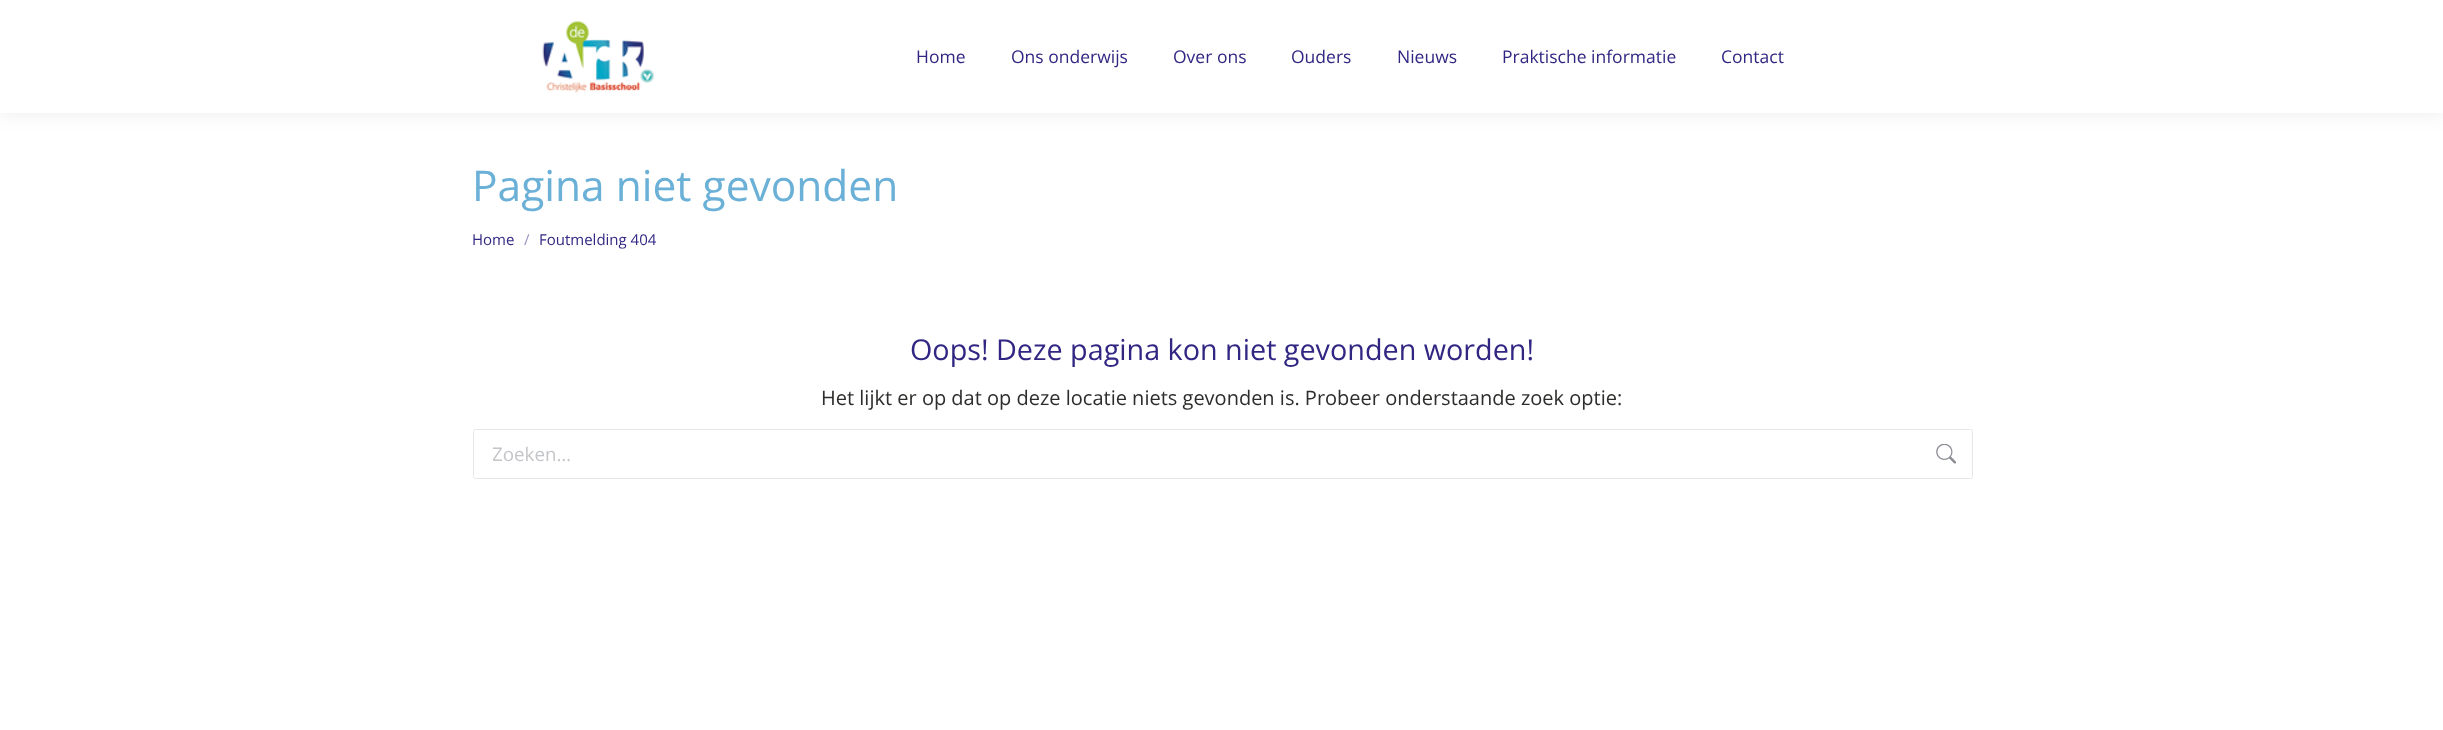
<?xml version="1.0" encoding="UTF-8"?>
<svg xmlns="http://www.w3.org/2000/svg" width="2443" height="730">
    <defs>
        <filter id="blur1" x="-50%" y="-200%" width="200%" height="500%"><feGaussianBlur stdDeviation="9.5"/></filter>
        <clipPath id="clip1"><rect x="493" y="441" width="1441" height="25"/></clipPath>
    </defs>
    <rect width="100%" height="100%" fill="#FFFFFF"/>
    <rect x="-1" y="-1" width="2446" height="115" fill="#000000" fill-opacity="0.07" filter="url(#blur1)"/>
    <rect x="0" y="0" width="2443" height="113" fill="#FFFFFF"/>
    <image x="542" y="21" width="112" height="72" href="img_01.png"/>
    <text x="916" y="63" font-family="Open Sans" font-size="17.5" fill="#312783">Home</text>
    <text x="1011" y="63" font-family="Open Sans" font-size="17.5" fill="#312783">Ons onderwijs</text>
    <text x="1173" y="63" font-family="Open Sans" font-size="17.5" fill="#312783">Over ons</text>
    <text x="1291" y="63" font-family="Open Sans" font-size="17.5" fill="#312783">Ouders</text>
    <text x="1397" y="63" font-family="Open Sans" font-size="17.5" fill="#312783">Nieuws</text>
    <text x="1502" y="63" font-family="Open Sans" font-size="17.5" fill="#312783">Praktische informatie</text>
    <text x="1721" y="63" font-family="Open Sans" font-size="17.5" fill="#312783">Contact</text>
    <text x="472" y="201" font-family="Open Sans" font-size="42.5" fill="#6AB0D7">Pagina niet gevonden</text>
    <text x="472" y="245" font-family="Open Sans" font-size="15" fill="#312783">Home</text>
    <text x="524" y="245" font-family="Open Sans" font-size="15" fill="#9893C1">/</text>
    <text x="539" y="245" font-family="Open Sans" font-size="15" fill="#312783">Foutmelding 404</text>
    <text x="910" y="360" font-family="Open Sans" font-size="28.75" fill="#312783">Oops! Deze pagina kon niet gevonden worden!</text>
    <text x="821" y="405" font-family="Open Sans" font-size="20" fill="#2E2D2C">Het lijkt er op dat op deze locatie niets gevonden is. Probeer onderstaande zoek optie:</text>
    <rect x="473.5" y="429.5" width="1499" height="49" rx="2" fill="none" stroke="#E7E7E7"/>
    <g clip-path="url(#clip1)">
        <text x="492" y="461" font-family="Open Sans" font-size="18.75" fill="#C4C5C9">Zoeken…</text>
    </g>
    <image x="1936" y="444" width="20" height="20" href="img_02.png"/>
</svg>
